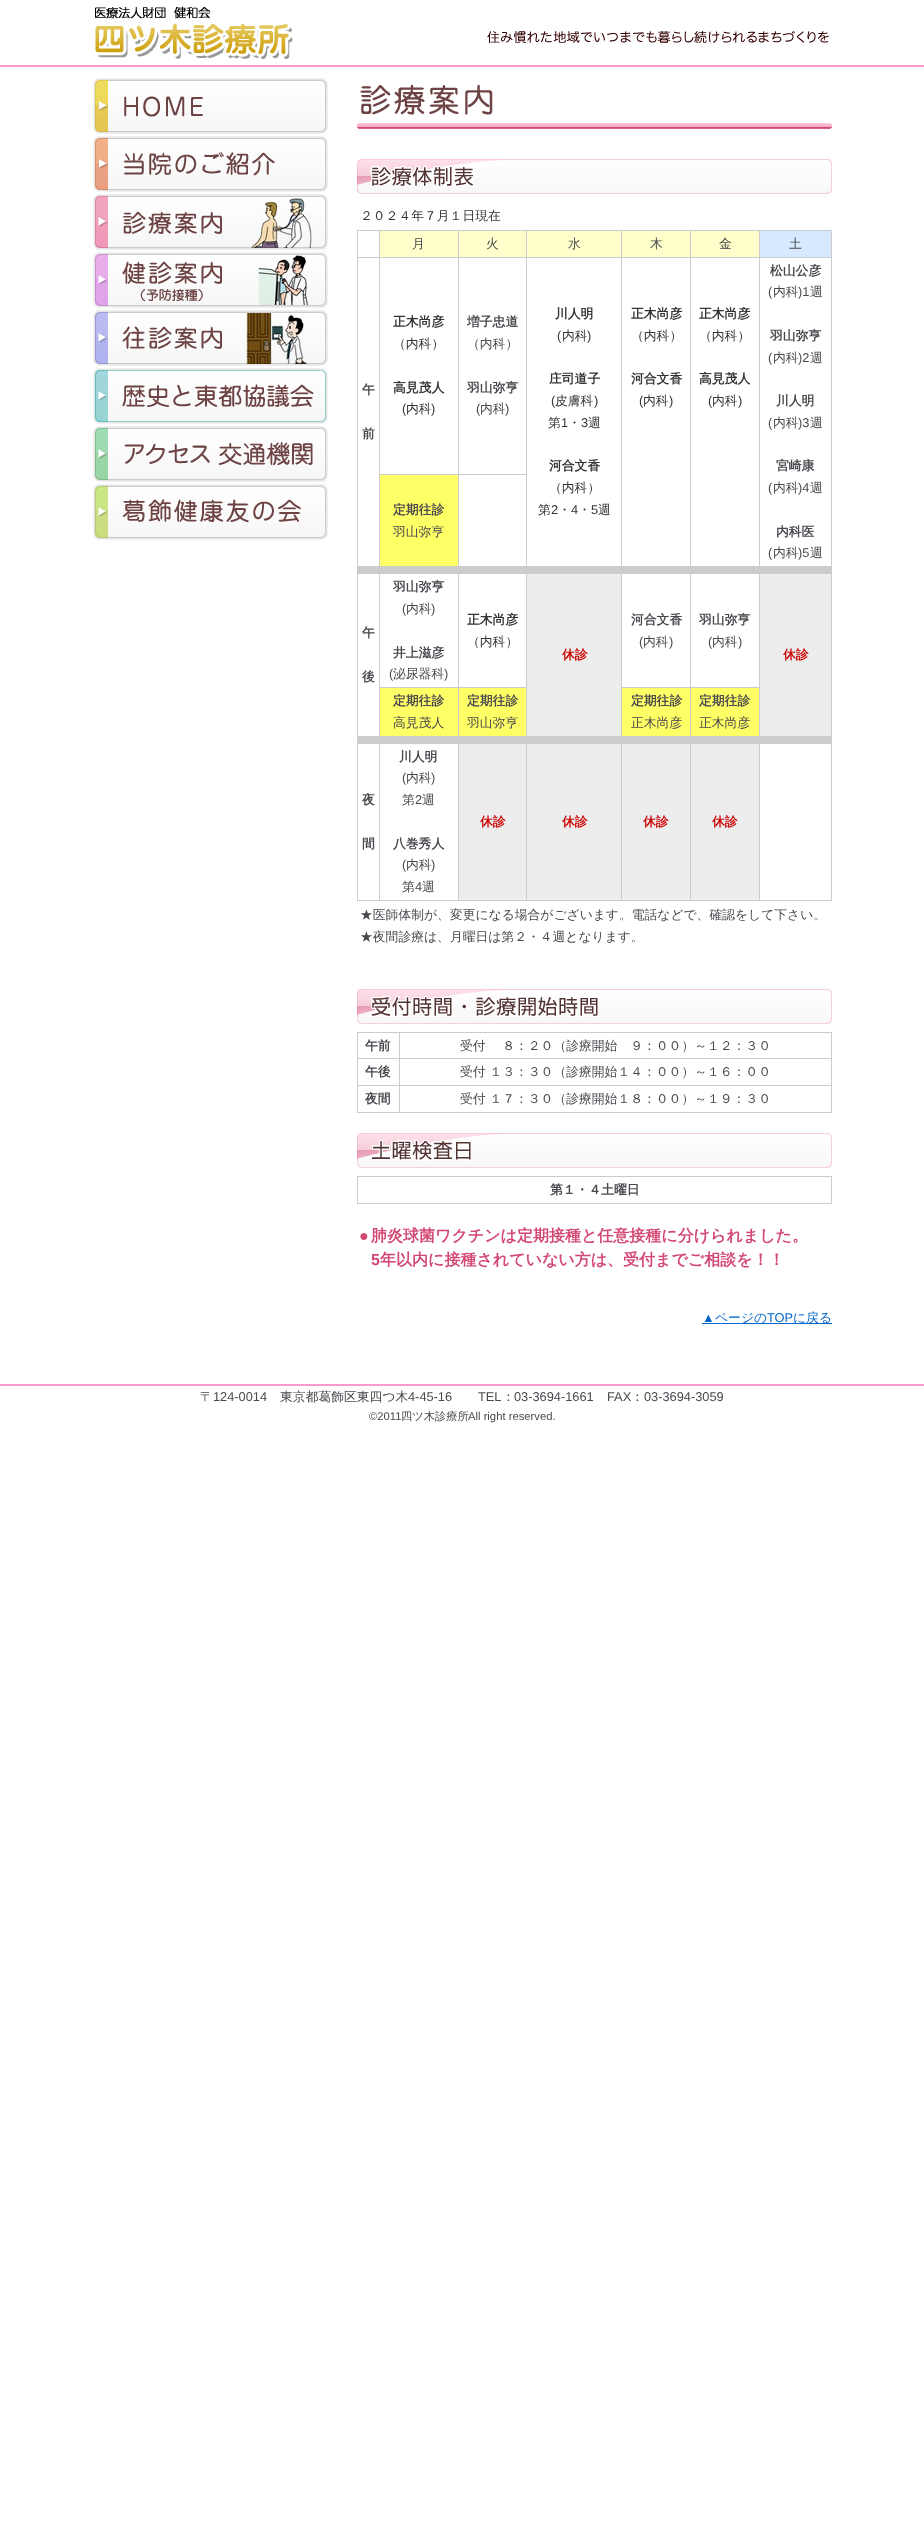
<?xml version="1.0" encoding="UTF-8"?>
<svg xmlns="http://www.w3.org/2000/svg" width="924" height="2527">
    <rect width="100%" height="100%" fill="#FFFFFF"/>
    <rect x="0" y="65" width="924" height="2" fill="#FF99CC"/>
    <image x="95" y="6" width="198" height="53" href="img_01.png"/>
    <image x="487" y="31" width="342" height="12" href="img_02.png"/>
    <image x="93" y="78" width="235" height="56" href="img_03.png"/>
    <image x="93" y="136" width="235" height="56" href="img_04.png"/>
    <image x="93" y="194" width="235" height="56" href="img_05.png"/>
    <image x="93" y="252" width="235" height="56" href="img_06.png"/>
    <image x="93" y="310" width="235" height="56" href="img_07.png"/>
    <image x="93" y="368" width="235" height="56" href="img_08.png"/>
    <image x="93" y="426" width="235" height="56" href="img_09.png"/>
    <image x="93" y="484" width="235" height="56" href="img_10.png"/>
    <image x="357" y="84" width="475" height="45" href="img_11.png"/>
    <image x="357" y="159" width="475" height="35" href="img_12.png"/>
    <text x="360" y="220" font-family="WenQuanYi Zen Hei" font-size="12.8" font-weight="500" fill="#333333">２０２４年７月１日現在</text>
    <rect x="357" y="230" width="475" height="671" fill="#CCCCCC"/>
    <rect x="358" y="231" width="21" height="26" fill="#FFFFFF"/>
    <rect x="380" y="231" width="78" height="26" fill="#FFFFCC"/>
    <text x="412" y="248" font-family="WenQuanYi Zen Hei" font-size="12.8" font-weight="500" fill="#4A484F">月</text>
    <rect x="459" y="231" width="67" height="26" fill="#FFFFCC"/>
    <text x="486" y="248" font-family="WenQuanYi Zen Hei" font-size="12.8" font-weight="500" fill="#4A484F">火</text>
    <rect x="527" y="231" width="94" height="26" fill="#FFFFCC"/>
    <text x="568" y="248" font-family="WenQuanYi Zen Hei" font-size="12.8" font-weight="500" fill="#4A484F">水</text>
    <rect x="622" y="231" width="68" height="26" fill="#FFFFCC"/>
    <text x="650" y="248" font-family="WenQuanYi Zen Hei" font-size="12.8" font-weight="500" fill="#4A484F">木</text>
    <rect x="691" y="231" width="68" height="26" fill="#FFFFCC"/>
    <text x="719" y="248" font-family="WenQuanYi Zen Hei" font-size="12.8" font-weight="500" fill="#4A484F">金</text>
    <rect x="760" y="231" width="71" height="26" fill="#D6E9FF"/>
    <text x="789" y="248" font-family="WenQuanYi Zen Hei" font-size="12.8" font-weight="500" fill="#4A484F">土</text>
    <rect x="358" y="258" width="21" height="308" fill="#FFFFFF"/>
    <text x="362" y="394" font-family="WenQuanYi Zen Hei" font-size="12.8" font-weight="700" fill="#4A484F">午</text>
    <text x="362" y="438" font-family="WenQuanYi Zen Hei" font-size="12.8" font-weight="700" fill="#4A484F">前</text>
    <rect x="380" y="258" width="78" height="216" fill="#FFFFFF"/>
    <text x="393" y="326" font-family="WenQuanYi Zen Hei" font-size="12.8" font-weight="700" fill="#333333">正木尚彦</text>
    <text x="393" y="348" font-family="WenQuanYi Zen Hei" font-size="12.8" font-weight="500" fill="#333333">（内科）</text>
    <text x="393" y="392" font-family="WenQuanYi Zen Hei" font-size="12.8" font-weight="700" fill="#333333">高見茂人</text>
    <text x="402" y="413" font-family="Liberation Sans" font-size="12.8" fill="#333333">(</text>
    <text x="406" y="413" font-family="WenQuanYi Zen Hei" font-size="12.8" font-weight="500" fill="#333333">内科</text>
    <text x="431" y="413" font-family="Liberation Sans" font-size="12.8" fill="#333333">)</text>
    <rect x="459" y="258" width="67" height="216" fill="#FFFFFF"/>
    <text x="467" y="326" font-family="WenQuanYi Zen Hei" font-size="12.8" font-weight="700" fill="#4A484F">増子忠道</text>
    <text x="467" y="348" font-family="WenQuanYi Zen Hei" font-size="12.8" font-weight="500" fill="#4A484F">（内科）</text>
    <text x="467" y="392" font-family="WenQuanYi Zen Hei" font-size="12.8" font-weight="700" fill="#4A484F">羽山弥亨</text>
    <text x="476" y="413" font-family="Liberation Sans" font-size="12.8" fill="#4A484F">(</text>
    <text x="480" y="413" font-family="WenQuanYi Zen Hei" font-size="12.8" font-weight="500" fill="#4A484F">内科</text>
    <text x="505" y="413" font-family="Liberation Sans" font-size="12.8" fill="#4A484F">)</text>
    <rect x="527" y="258" width="94" height="308" fill="#FFFFFF"/>
    <text x="555" y="318" font-family="WenQuanYi Zen Hei" font-size="12.8" font-weight="700" fill="#333333">川人明</text>
    <text x="557" y="340" font-family="Liberation Sans" font-size="12.8" fill="#333333">(</text>
    <text x="562" y="340" font-family="WenQuanYi Zen Hei" font-size="12.8" font-weight="500" fill="#333333">内科</text>
    <text x="587" y="340" font-family="Liberation Sans" font-size="12.8" fill="#333333">)</text>
    <text x="549" y="383" font-family="WenQuanYi Zen Hei" font-size="12.8" font-weight="700" fill="#333333">庄司道子</text>
    <text x="551" y="405" font-family="Liberation Sans" font-size="12.8" fill="#333333">(</text>
    <text x="555" y="405" font-family="WenQuanYi Zen Hei" font-size="12.8" font-weight="500" fill="#333333">皮膚科</text>
    <text x="594" y="405" font-family="Liberation Sans" font-size="12.8" fill="#333333">)</text>
    <text x="548" y="427" font-family="WenQuanYi Zen Hei" font-size="12.8" font-weight="500" fill="#333333">第</text>
    <text x="561" y="427" font-family="Liberation Sans" font-size="12.8" fill="#333333">1</text>
    <text x="568" y="427" font-family="WenQuanYi Zen Hei" font-size="12.8" font-weight="500" fill="#333333">・</text>
    <text x="581" y="427" font-family="Liberation Sans" font-size="12.8" fill="#333333">3</text>
    <text x="588" y="427" font-family="WenQuanYi Zen Hei" font-size="12.8" font-weight="500" fill="#333333">週</text>
    <text x="549" y="470" font-family="WenQuanYi Zen Hei" font-size="12.8" font-weight="700" fill="#333333">河合文香</text>
    <text x="549" y="492" font-family="WenQuanYi Zen Hei" font-size="12.8" font-weight="500" fill="#333333">（内科）</text>
    <text x="538" y="514" font-family="WenQuanYi Zen Hei" font-size="12.8" font-weight="500" fill="#333333">第</text>
    <text x="551" y="514" font-family="Liberation Sans" font-size="12.8" fill="#333333">2</text>
    <text x="558" y="514" font-family="WenQuanYi Zen Hei" font-size="12.8" font-weight="500" fill="#333333">・</text>
    <text x="571" y="514" font-family="Liberation Sans" font-size="12.8" fill="#333333">4</text>
    <text x="578" y="514" font-family="WenQuanYi Zen Hei" font-size="12.8" font-weight="500" fill="#333333">・</text>
    <text x="591" y="514" font-family="Liberation Sans" font-size="12.8" fill="#333333">5</text>
    <text x="598" y="514" font-family="WenQuanYi Zen Hei" font-size="12.8" font-weight="500" fill="#333333">週</text>
    <rect x="622" y="258" width="68" height="308" fill="#FFFFFF"/>
    <text x="631" y="318" font-family="WenQuanYi Zen Hei" font-size="12.8" font-weight="700" fill="#333333">正木尚彦</text>
    <text x="631" y="340" font-family="WenQuanYi Zen Hei" font-size="12.8" font-weight="500" fill="#333333">（内科）</text>
    <text x="631" y="383" font-family="WenQuanYi Zen Hei" font-size="12.8" font-weight="700" fill="#333333">河合文香</text>
    <text x="639" y="405" font-family="Liberation Sans" font-size="12.8" fill="#333333">(</text>
    <text x="643" y="405" font-family="WenQuanYi Zen Hei" font-size="12.8" font-weight="500" fill="#333333">内科</text>
    <text x="669" y="405" font-family="Liberation Sans" font-size="12.8" fill="#333333">)</text>
    <rect x="691" y="258" width="68" height="308" fill="#FFFFFF"/>
    <text x="699" y="318" font-family="WenQuanYi Zen Hei" font-size="12.8" font-weight="700" fill="#333333">正木尚彦</text>
    <text x="699" y="340" font-family="WenQuanYi Zen Hei" font-size="12.8" font-weight="500" fill="#333333">（内科）</text>
    <text x="699" y="383" font-family="WenQuanYi Zen Hei" font-size="12.8" font-weight="700" fill="#333333">高見茂人</text>
    <text x="708" y="405" font-family="Liberation Sans" font-size="12.8" fill="#333333">(</text>
    <text x="712" y="405" font-family="WenQuanYi Zen Hei" font-size="12.8" font-weight="500" fill="#333333">内科</text>
    <text x="738" y="405" font-family="Liberation Sans" font-size="12.8" fill="#333333">)</text>
    <rect x="760" y="258" width="71" height="308" fill="#FFFFFF"/>
    <text x="770" y="275" font-family="WenQuanYi Zen Hei" font-size="12.8" font-weight="700" fill="#4A484F">松山公彦</text>
    <text x="768" y="296" font-family="Liberation Sans" font-size="12.8" fill="#4A484F">(</text>
    <text x="773" y="296" font-family="WenQuanYi Zen Hei" font-size="12.8" font-weight="500" fill="#4A484F">内科</text>
    <text x="798" y="296" font-family="Liberation Sans" font-size="12.8" fill="#4A484F">)1</text>
    <text x="810" y="296" font-family="WenQuanYi Zen Hei" font-size="12.8" font-weight="500" fill="#4A484F">週</text>
    <text x="770" y="340" font-family="WenQuanYi Zen Hei" font-size="12.8" font-weight="700" fill="#4A484F">羽山弥亨</text>
    <text x="768" y="362" font-family="Liberation Sans" font-size="12.8" fill="#4A484F">(</text>
    <text x="773" y="362" font-family="WenQuanYi Zen Hei" font-size="12.8" font-weight="500" fill="#4A484F">内科</text>
    <text x="798" y="362" font-family="Liberation Sans" font-size="12.8" fill="#4A484F">)2</text>
    <text x="810" y="362" font-family="WenQuanYi Zen Hei" font-size="12.8" font-weight="500" fill="#4A484F">週</text>
    <text x="776" y="405" font-family="WenQuanYi Zen Hei" font-size="12.8" font-weight="700" fill="#4A484F">川人明</text>
    <text x="768" y="427" font-family="Liberation Sans" font-size="12.8" fill="#4A484F">(</text>
    <text x="773" y="427" font-family="WenQuanYi Zen Hei" font-size="12.8" font-weight="500" fill="#4A484F">内科</text>
    <text x="798" y="427" font-family="Liberation Sans" font-size="12.8" fill="#4A484F">)3</text>
    <text x="810" y="427" font-family="WenQuanYi Zen Hei" font-size="12.8" font-weight="500" fill="#4A484F">週</text>
    <text x="776" y="470" font-family="WenQuanYi Zen Hei" font-size="12.8" font-weight="700" fill="#4A484F">宮崎康</text>
    <text x="768" y="492" font-family="Liberation Sans" font-size="12.8" fill="#4A484F">(</text>
    <text x="773" y="492" font-family="WenQuanYi Zen Hei" font-size="12.8" font-weight="500" fill="#4A484F">内科</text>
    <text x="798" y="492" font-family="Liberation Sans" font-size="12.8" fill="#4A484F">)4</text>
    <text x="810" y="492" font-family="WenQuanYi Zen Hei" font-size="12.8" font-weight="500" fill="#4A484F">週</text>
    <text x="776" y="536" font-family="WenQuanYi Zen Hei" font-size="12.8" font-weight="700" fill="#4A484F">内科医</text>
    <text x="768" y="557" font-family="Liberation Sans" font-size="12.8" fill="#4A484F">(</text>
    <text x="773" y="557" font-family="WenQuanYi Zen Hei" font-size="12.8" font-weight="500" fill="#4A484F">内科</text>
    <text x="798" y="557" font-family="Liberation Sans" font-size="12.8" fill="#4A484F">)5</text>
    <text x="810" y="557" font-family="WenQuanYi Zen Hei" font-size="12.8" font-weight="500" fill="#4A484F">週</text>
    <rect x="380" y="475" width="78" height="91" fill="#FFFF66"/>
    <text x="393" y="514" font-family="WenQuanYi Zen Hei" font-size="12.8" font-weight="700" fill="#4A484F">定期往診</text>
    <text x="393" y="536" font-family="WenQuanYi Zen Hei" font-size="12.8" font-weight="500" fill="#4A484F">羽山弥亨</text>
    <rect x="459" y="475" width="67" height="91" fill="#FFFFFF"/>
    <rect x="358" y="574" width="21" height="162" fill="#FFFFFF"/>
    <text x="362" y="637" font-family="WenQuanYi Zen Hei" font-size="12.8" font-weight="700" fill="#4A484F">午</text>
    <text x="362" y="681" font-family="WenQuanYi Zen Hei" font-size="12.8" font-weight="700" fill="#4A484F">後</text>
    <rect x="380" y="574" width="78" height="113" fill="#FFFFFF"/>
    <text x="393" y="591" font-family="WenQuanYi Zen Hei" font-size="12.8" font-weight="700" fill="#4A484F">羽山弥亨</text>
    <text x="402" y="613" font-family="Liberation Sans" font-size="12.8" fill="#4A484F">(</text>
    <text x="406" y="613" font-family="WenQuanYi Zen Hei" font-size="12.8" font-weight="500" fill="#4A484F">内科</text>
    <text x="431" y="613" font-family="Liberation Sans" font-size="12.8" fill="#4A484F">)</text>
    <text x="393" y="657" font-family="WenQuanYi Zen Hei" font-size="12.8" font-weight="700" fill="#4A484F">井上滋彦</text>
    <text x="389" y="678" font-family="Liberation Sans" font-size="12.8" fill="#4A484F">(</text>
    <text x="393" y="678" font-family="WenQuanYi Zen Hei" font-size="12.8" font-weight="500" fill="#4A484F">泌尿器科</text>
    <text x="444" y="678" font-family="Liberation Sans" font-size="12.8" fill="#4A484F">)</text>
    <rect x="459" y="574" width="67" height="113" fill="#FFFFFF"/>
    <text x="467" y="624" font-family="WenQuanYi Zen Hei" font-size="12.8" font-weight="700" fill="#333333">正木尚彦</text>
    <text x="467" y="646" font-family="WenQuanYi Zen Hei" font-size="12.8" font-weight="500" fill="#333333">（内科）</text>
    <rect x="527" y="574" width="94" height="162" fill="#EDEDED"/>
    <text x="562" y="659" font-family="WenQuanYi Zen Hei" font-size="12.8" font-weight="700" fill="#CC0000">休診</text>
    <rect x="622" y="574" width="68" height="113" fill="#FFFFFF"/>
    <text x="631" y="624" font-family="WenQuanYi Zen Hei" font-size="12.8" font-weight="700" fill="#4A484F">河合文香</text>
    <text x="639" y="646" font-family="Liberation Sans" font-size="12.8" fill="#4A484F">(</text>
    <text x="643" y="646" font-family="WenQuanYi Zen Hei" font-size="12.8" font-weight="500" fill="#4A484F">内科</text>
    <text x="669" y="646" font-family="Liberation Sans" font-size="12.8" fill="#4A484F">)</text>
    <rect x="691" y="574" width="68" height="113" fill="#FFFFFF"/>
    <text x="699" y="624" font-family="WenQuanYi Zen Hei" font-size="12.8" font-weight="700" fill="#4A484F">羽山弥亨</text>
    <text x="708" y="646" font-family="Liberation Sans" font-size="12.8" fill="#4A484F">(</text>
    <text x="712" y="646" font-family="WenQuanYi Zen Hei" font-size="12.8" font-weight="500" fill="#4A484F">内科</text>
    <text x="738" y="646" font-family="Liberation Sans" font-size="12.8" fill="#4A484F">)</text>
    <rect x="760" y="574" width="71" height="162" fill="#EDEDED"/>
    <text x="783" y="659" font-family="WenQuanYi Zen Hei" font-size="12.8" font-weight="700" fill="#CC0000">休診</text>
    <rect x="380" y="688" width="78" height="48" fill="#FFFF66"/>
    <text x="393" y="705" font-family="WenQuanYi Zen Hei" font-size="12.8" font-weight="700" fill="#4A484F">定期往診</text>
    <text x="393" y="727" font-family="WenQuanYi Zen Hei" font-size="12.8" font-weight="500" fill="#4A484F">高見茂人</text>
    <rect x="459" y="688" width="67" height="48" fill="#FFFF66"/>
    <text x="467" y="705" font-family="WenQuanYi Zen Hei" font-size="12.8" font-weight="700" fill="#4A484F">定期往診</text>
    <text x="467" y="727" font-family="WenQuanYi Zen Hei" font-size="12.8" font-weight="500" fill="#4A484F">羽山弥亨</text>
    <rect x="622" y="688" width="68" height="48" fill="#FFFF66"/>
    <text x="631" y="705" font-family="WenQuanYi Zen Hei" font-size="12.8" font-weight="700" fill="#4A484F">定期往診</text>
    <text x="631" y="727" font-family="WenQuanYi Zen Hei" font-size="12.8" font-weight="500" fill="#4A484F">正木尚彦</text>
    <rect x="691" y="688" width="68" height="48" fill="#FFFF66"/>
    <text x="699" y="705" font-family="WenQuanYi Zen Hei" font-size="12.8" font-weight="700" fill="#4A484F">定期往診</text>
    <text x="699" y="727" font-family="WenQuanYi Zen Hei" font-size="12.8" font-weight="500" fill="#4A484F">正木尚彦</text>
    <rect x="358" y="744" width="21" height="156" fill="#FFFFFF"/>
    <text x="362" y="804" font-family="WenQuanYi Zen Hei" font-size="12.8" font-weight="700" fill="#4A484F">夜</text>
    <text x="362" y="848" font-family="WenQuanYi Zen Hei" font-size="12.8" font-weight="700" fill="#4A484F">間</text>
    <rect x="380" y="744" width="78" height="156" fill="#FFFFFF"/>
    <text x="399" y="761" font-family="WenQuanYi Zen Hei" font-size="12.8" font-weight="700" fill="#4A484F">川人明</text>
    <text x="402" y="782" font-family="Liberation Sans" font-size="12.8" fill="#4A484F">(</text>
    <text x="406" y="782" font-family="WenQuanYi Zen Hei" font-size="12.8" font-weight="500" fill="#4A484F">内科</text>
    <text x="431" y="782" font-family="Liberation Sans" font-size="12.8" fill="#4A484F">)</text>
    <text x="402" y="804" font-family="WenQuanYi Zen Hei" font-size="12.8" font-weight="500" fill="#4A484F">第</text>
    <text x="415" y="804" font-family="Liberation Sans" font-size="12.8" fill="#4A484F">2</text>
    <text x="422" y="804" font-family="WenQuanYi Zen Hei" font-size="12.8" font-weight="500" fill="#4A484F">週</text>
    <text x="393" y="848" font-family="WenQuanYi Zen Hei" font-size="12.8" font-weight="700" fill="#4A484F">八巻秀人</text>
    <text x="402" y="869" font-family="Liberation Sans" font-size="12.8" fill="#4A484F">(</text>
    <text x="406" y="869" font-family="WenQuanYi Zen Hei" font-size="12.8" font-weight="500" fill="#4A484F">内科</text>
    <text x="431" y="869" font-family="Liberation Sans" font-size="12.8" fill="#4A484F">)</text>
    <text x="402" y="891" font-family="WenQuanYi Zen Hei" font-size="12.8" font-weight="500" fill="#4A484F">第</text>
    <text x="415" y="891" font-family="Liberation Sans" font-size="12.8" fill="#4A484F">4</text>
    <text x="422" y="891" font-family="WenQuanYi Zen Hei" font-size="12.8" font-weight="500" fill="#4A484F">週</text>
    <rect x="459" y="744" width="67" height="156" fill="#EDEDED"/>
    <text x="480" y="826" font-family="WenQuanYi Zen Hei" font-size="12.8" font-weight="700" fill="#CC0000">休診</text>
    <rect x="527" y="744" width="94" height="156" fill="#EDEDED"/>
    <text x="562" y="826" font-family="WenQuanYi Zen Hei" font-size="12.8" font-weight="700" fill="#CC0000">休診</text>
    <rect x="622" y="744" width="68" height="156" fill="#EDEDED"/>
    <text x="643" y="826" font-family="WenQuanYi Zen Hei" font-size="12.8" font-weight="700" fill="#CC0000">休診</text>
    <rect x="691" y="744" width="68" height="156" fill="#EDEDED"/>
    <text x="712" y="826" font-family="WenQuanYi Zen Hei" font-size="12.8" font-weight="700" fill="#CC0000">休診</text>
    <rect x="760" y="744" width="71" height="156" fill="#FFFFFF"/>
    <text font-family="WenQuanYi Zen Hei" font-size="12.8" font-weight="500" fill="#4A484F">
        <tspan x="360" y="919">★医師体制が、変更になる場合がございます。電話などで、確認をして下さい。</tspan>
        <tspan x="360" y="941">★夜間診療は、月曜日は第２・４週となります。</tspan>
    </text>
    <image x="357" y="989" width="475" height="35" href="img_13.png"/>
    <rect x="357" y="1032" width="475" height="81" fill="#CCCCCC"/>
    <rect x="358" y="1033" width="41" height="25" fill="#FFFFFF"/>
    <text x="365" y="1050" font-family="WenQuanYi Zen Hei" font-size="12.8" font-weight="700" fill="#4A484F">午前</text>
    <rect x="400" y="1033" width="431" height="25" fill="#FFFFFF"/>
    <text x="460" y="1050" font-family="WenQuanYi Zen Hei" font-size="12.8" font-weight="500" fill="#4A484F">受付 　８：２０（診療開始　９：００）～１２：３０</text>
    <rect x="358" y="1059" width="41" height="26" fill="#FFFFFF"/>
    <text x="365" y="1076" font-family="WenQuanYi Zen Hei" font-size="12.8" font-weight="700" fill="#4A484F">午後</text>
    <rect x="400" y="1059" width="431" height="26" fill="#FFFFFF"/>
    <text x="460" y="1076" font-family="WenQuanYi Zen Hei" font-size="12.8" font-weight="500" fill="#4A484F">受付 １３：３０（診療開始１４：００）～１６：００</text>
    <rect x="358" y="1086" width="41" height="26" fill="#FFFFFF"/>
    <text x="365" y="1103" font-family="WenQuanYi Zen Hei" font-size="12.8" font-weight="700" fill="#4A484F">夜間</text>
    <rect x="400" y="1086" width="431" height="26" fill="#FFFFFF"/>
    <text x="460" y="1103" font-family="WenQuanYi Zen Hei" font-size="12.8" font-weight="500" fill="#4A484F">受付 １７：３０（診療開始１８：００）～１９：３０</text>
    <image x="357" y="1133" width="475" height="35" href="img_14.png"/>
    <rect x="357" y="1176" width="475" height="28" fill="#CCCCCC"/>
    <rect x="358" y="1177" width="473" height="26" fill="#FFFFFF"/>
    <text x="550" y="1194" font-family="WenQuanYi Zen Hei" font-size="12.8" font-weight="700" fill="#4A484F">第１・４土曜日</text>
    <text x="359" y="1241" font-family="Liberation Sans" font-size="16" font-weight="700" fill="#D34772">●</text>
    <text x="371" y="1241" font-family="WenQuanYi Zen Hei" font-size="16" font-weight="700" fill="#D34772">肺炎球菌ワクチンは定期接種と任意接種に分けられました。</text>
    <text x="371" y="1265" font-family="Liberation Sans" font-size="16" font-weight="700" fill="#D34772">5</text>
    <text x="380" y="1265" font-family="WenQuanYi Zen Hei" font-size="16" font-weight="700" fill="#D34772">年以内に接種されていない方は、受付までご相談を！！</text>
    <text x="702" y="1322" font-family="Liberation Sans" font-size="12.8" fill="#0066CC">▲</text>
    <rect x="702" y="1323" width="130" height="1" fill="#0066CC"/>
    <text x="715" y="1322" font-family="WenQuanYi Zen Hei" font-size="12.8" font-weight="500" fill="#0066CC">ページの</text>
    <text x="767" y="1322" font-family="Liberation Sans" font-size="12.8" fill="#0066CC">TOP</text>
    <text x="793" y="1322" font-family="WenQuanYi Zen Hei" font-size="12.8" font-weight="500" fill="#0066CC">に戻る</text>
    <rect x="0" y="1384" width="924" height="2" fill="#FF99CC"/>
    <text x="200" y="1401" font-family="WenQuanYi Zen Hei" font-size="12.8" font-weight="500" fill="#4A484F">〒</text>
    <text x="213" y="1401" font-family="Liberation Sans" font-size="12.8" fill="#4A484F">124-0014</text>
    <text x="280" y="1401" font-family="WenQuanYi Zen Hei" font-size="12.8" font-weight="500" fill="#4A484F">東京都葛飾区東四つ木</text>
    <text x="408" y="1401" font-family="Liberation Sans" font-size="12.8" fill="#4A484F">4-45-16</text>
    <text x="478" y="1401" font-family="Liberation Sans" font-size="12.8" fill="#4A484F">TEL</text>
    <text x="502" y="1401" font-family="WenQuanYi Zen Hei" font-size="12.8" font-weight="500" fill="#4A484F">：</text>
    <text x="514" y="1401" font-family="Liberation Sans" font-size="12.8" fill="#4A484F">03-3694-1661</text>
    <text x="607" y="1401" font-family="Liberation Sans" font-size="12.8" fill="#4A484F">FAX</text>
    <text x="631" y="1401" font-family="WenQuanYi Zen Hei" font-size="12.8" font-weight="500" fill="#4A484F">：</text>
    <text x="644" y="1401" font-family="Liberation Sans" font-size="12.8" fill="#4A484F">03-3694-3059</text>
    <text x="369" y="1420" font-family="Liberation Sans" font-size="11.25" fill="#4A484F">©2011</text>
    <text x="401" y="1420" font-family="WenQuanYi Zen Hei" font-size="11.25" font-weight="500" fill="#4A484F">四ツ木診療所</text>
    <text x="468" y="1420" font-family="Liberation Sans" font-size="11.25" fill="#4A484F">All right reserved.</text>
</svg>
